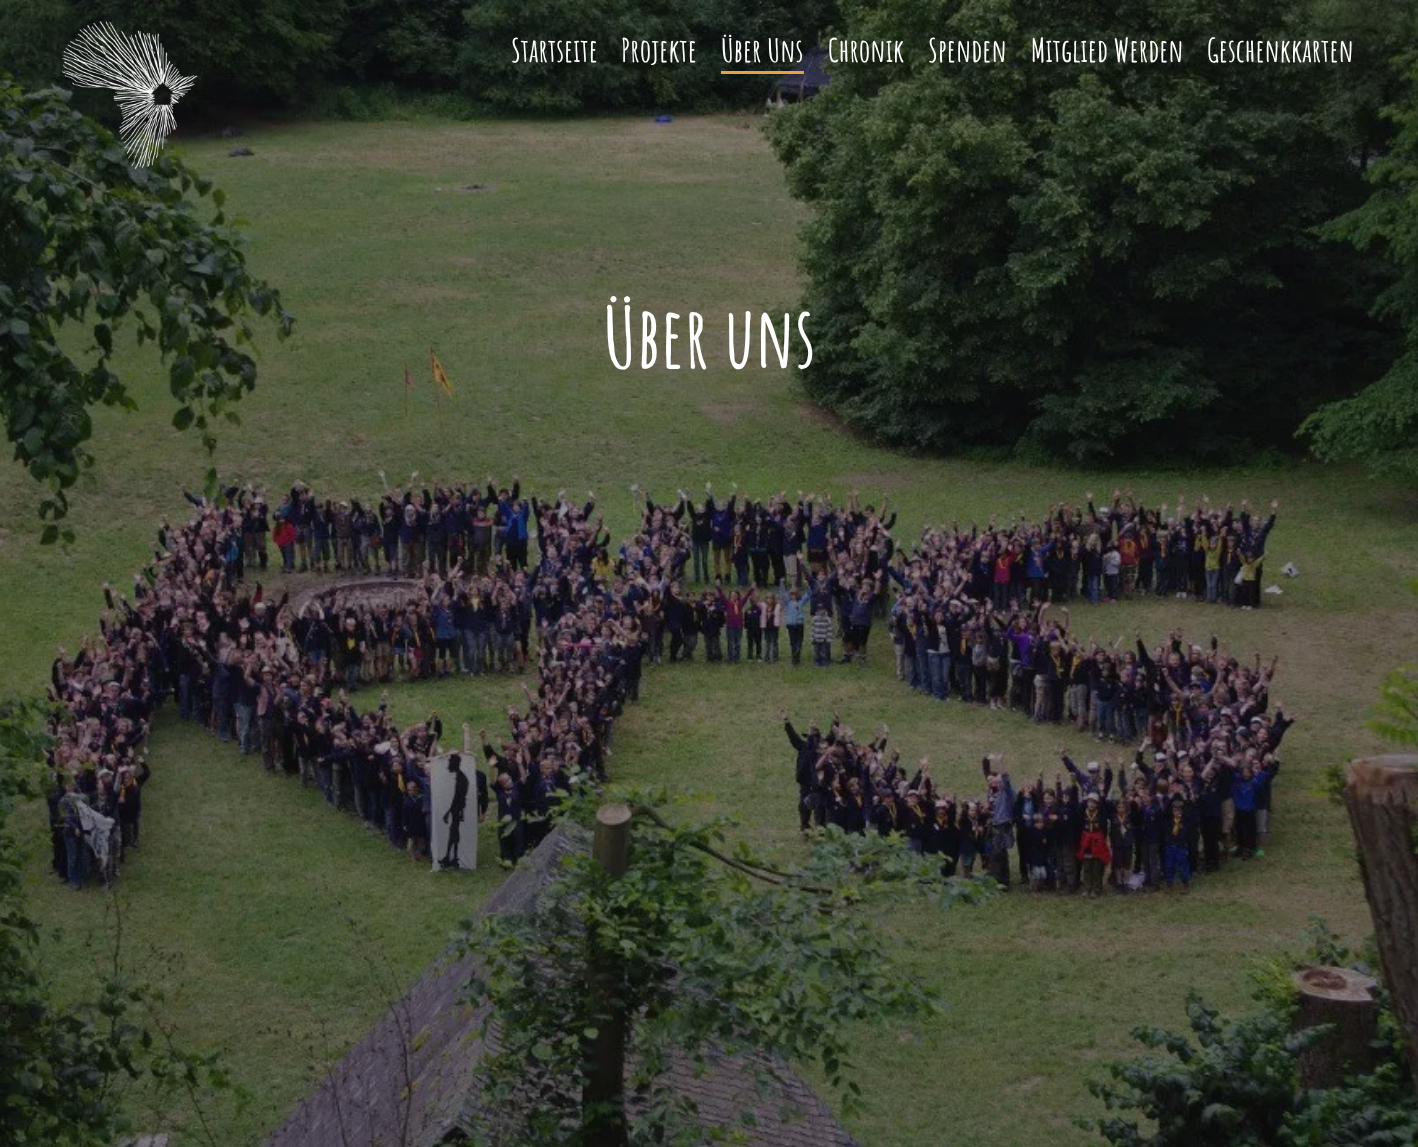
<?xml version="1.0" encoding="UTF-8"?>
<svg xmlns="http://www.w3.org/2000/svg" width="1418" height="1147">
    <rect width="100%" height="100%" fill="#FFFFFF"/>
    <image x="0" y="0" width="1418" height="1147" href="img_01.png"/>
    <image x="62" y="21" width="136" height="149" href="img_02.png"/>
    <text x="511" y="62" font-family="Amatic SC" font-size="32" font-weight="700" fill="#FFFFFF">Startseite</text>
    <text x="621" y="62" font-family="Amatic SC" font-size="32" font-weight="700" fill="#FFFFFF">Projekte</text>
    <rect x="721" y="71" width="83" height="3" fill="#EBA044"/>
    <text x="721" y="62" font-family="Amatic SC" font-size="32" font-weight="700" fill="#FFFFFF">Über Uns</text>
    <text x="828" y="62" font-family="Amatic SC" font-size="32" font-weight="700" fill="#FFFFFF">Chronik</text>
    <text x="928" y="62" font-family="Amatic SC" font-size="32" font-weight="700" fill="#FFFFFF">Spenden</text>
    <text x="1031" y="62" font-family="Amatic SC" font-size="32" font-weight="700" fill="#FFFFFF">Mitglied Werden</text>
    <text x="1207" y="62" font-family="Amatic SC" font-size="32" font-weight="700" fill="#FFFFFF">Geschenkkarten</text>
    <text x="603" y="368" font-family="Amatic SC" font-size="84" font-weight="700" fill="#FFFFFF">Über uns</text>
</svg>
